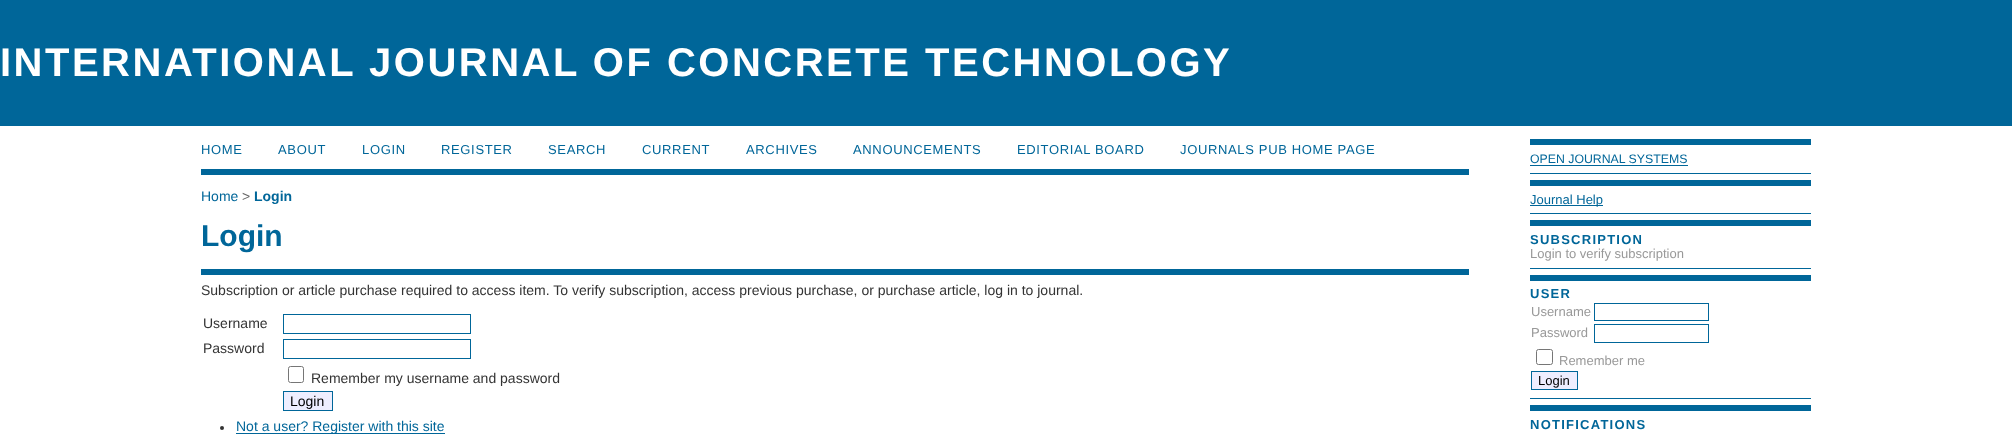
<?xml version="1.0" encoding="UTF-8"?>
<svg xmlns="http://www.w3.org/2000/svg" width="2012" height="440">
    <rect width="100%" height="100%" fill="#FFFFFF"/>
    <rect x="0" y="0" width="2012" height="126" fill="#006699"/>
    <text x="0" y="76" font-family="Liberation Sans" font-size="40" font-weight="700" letter-spacing="2.5" fill="#FFFFFF">INTERNATIONAL JOURNAL OF CONCRETE TECHNOLOGY</text>
    <rect x="201" y="169" width="1268" height="6" fill="#006699"/>
    <text x="201" y="154" font-family="Liberation Sans" font-size="13" letter-spacing="0.65" fill="#006699">HOME</text>
    <text x="278" y="154" font-family="Liberation Sans" font-size="13" letter-spacing="0.65" fill="#006699">ABOUT</text>
    <text x="362" y="154" font-family="Liberation Sans" font-size="13" letter-spacing="0.65" fill="#006699">LOGIN</text>
    <text x="441" y="154" font-family="Liberation Sans" font-size="13" letter-spacing="0.65" fill="#006699">REGISTER</text>
    <text x="548" y="154" font-family="Liberation Sans" font-size="13" letter-spacing="0.65" fill="#006699">SEARCH</text>
    <text x="642" y="154" font-family="Liberation Sans" font-size="13" letter-spacing="0.65" fill="#006699">CURRENT</text>
    <text x="746" y="154" font-family="Liberation Sans" font-size="13" letter-spacing="0.65" fill="#006699">ARCHIVES</text>
    <text x="853" y="154" font-family="Liberation Sans" font-size="13" letter-spacing="0.65" fill="#006699">ANNOUNCEMENTS</text>
    <text x="1017" y="154" font-family="Liberation Sans" font-size="13" letter-spacing="0.65" fill="#006699">EDITORIAL BOARD</text>
    <text x="1180" y="154" font-family="Liberation Sans" font-size="13" letter-spacing="0.65" fill="#006699">JOURNALS PUB HOME PAGE</text>
    <text x="201" y="201" font-family="Liberation Sans" font-size="14" fill="#006699">Home</text>
    <text x="242" y="201" font-family="Liberation Sans" font-size="14" fill="#666666">&gt;</text>
    <text x="254" y="201" font-family="Liberation Sans" font-size="14" font-weight="700" fill="#006699">Login</text>
    <text x="201" y="246" font-family="Liberation Sans" font-size="30" font-weight="700" fill="#006699">Login</text>
    <rect x="201" y="269" width="1268" height="6" fill="#006699"/>
    <text x="201" y="295" font-family="Liberation Sans" font-size="14" fill="#333333">Subscription or article purchase required to access item. To verify subscription, access previous purchase, or purchase article, log in to journal.</text>
    <text x="203" y="328" font-family="Liberation Sans" font-size="14" fill="#333333">Username</text>
    <rect x="283.5" y="314.5" width="187" height="19" fill="none" stroke="#006699"/>
    <text x="203" y="353" font-family="Liberation Sans" font-size="14" fill="#333333">Password</text>
    <rect x="283.5" y="339.5" width="187" height="19" fill="none" stroke="#006699"/>
    <rect x="288.5" y="366.5" width="15" height="16" rx="2" fill="none" stroke="#767676"/>
    <text x="311" y="383" font-family="Liberation Sans" font-size="14" fill="#333333">Remember my username and password</text>
    <rect x="283.5" y="391.5" width="49" height="19" fill="#EEEEFF" stroke="#006699"/>
    <text x="290" y="406" font-family="Liberation Sans" font-size="14" fill="#000000">Login</text>
    <circle cx="222" cy="428" r="2" fill="#333333"/>
    <rect x="236" y="433" width="209" height="1" fill="#006699"/>
    <text x="236" y="431" font-family="Liberation Sans" font-size="14" fill="#006699">Not a user? Register with this site</text>
    <rect x="1530" y="139" width="281" height="6" fill="#006699"/>
    <rect x="1530" y="173" width="281" height="1" fill="#006699"/>
    <text x="1530" y="163" font-family="Liberation Sans" font-size="12.3" fill="#006699">OPEN JOURNAL SYSTEMS</text>
    <rect x="1530" y="165" width="158" height="1" fill="#006699"/>
    <rect x="1530" y="180" width="281" height="6" fill="#006699"/>
    <rect x="1530" y="213" width="281" height="1" fill="#006699"/>
    <rect x="1530" y="205" width="73" height="1" fill="#006699"/>
    <text x="1530" y="204" font-family="Liberation Sans" font-size="13" fill="#006699">Journal Help</text>
    <rect x="1530" y="220" width="281" height="6" fill="#006699"/>
    <rect x="1530" y="268" width="281" height="1" fill="#006699"/>
    <text x="1530" y="244" font-family="Liberation Sans" font-size="13" font-weight="700" letter-spacing="1.25" fill="#006699">SUBSCRIPTION</text>
    <text x="1530" y="258" font-family="Liberation Sans" font-size="13" fill="#999999">Login to verify subscription</text>
    <rect x="1530" y="275" width="281" height="6" fill="#006699"/>
    <rect x="1530" y="398" width="281" height="1" fill="#006699"/>
    <text x="1530" y="298" font-family="Liberation Sans" font-size="13" font-weight="700" letter-spacing="1.25" fill="#006699">USER</text>
    <text x="1531" y="316" font-family="Liberation Sans" font-size="13" fill="#999999">Username</text>
    <rect x="1594.5" y="303.5" width="114" height="17" fill="none" stroke="#006699"/>
    <text x="1531" y="337" font-family="Liberation Sans" font-size="13" fill="#999999">Password</text>
    <rect x="1594.5" y="324.5" width="114" height="18" fill="none" stroke="#006699"/>
    <rect x="1536.5" y="349.5" width="16" height="15" rx="2" fill="none" stroke="#767676"/>
    <text x="1559" y="365" font-family="Liberation Sans" font-size="13" fill="#999999">Remember me</text>
    <rect x="1531.5" y="371.5" width="46" height="18" fill="#EEEEFF" stroke="#006699"/>
    <text x="1538" y="385" font-family="Liberation Sans" font-size="13" fill="#000000">Login</text>
    <rect x="1530" y="405" width="281" height="6" fill="#006699"/>
    <text x="1530" y="429" font-family="Liberation Sans" font-size="13" font-weight="700" letter-spacing="1.25" fill="#006699">NOTIFICATIONS</text>
</svg>
